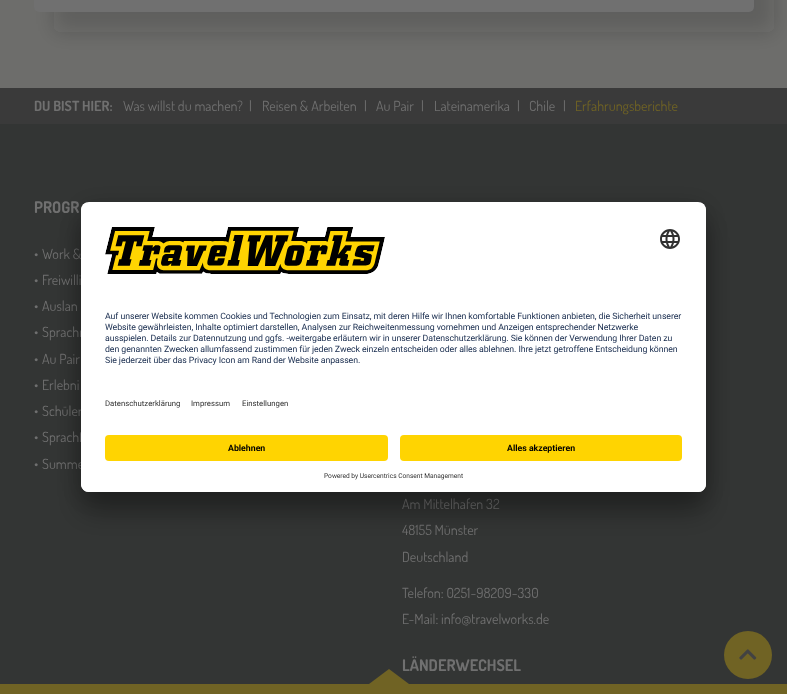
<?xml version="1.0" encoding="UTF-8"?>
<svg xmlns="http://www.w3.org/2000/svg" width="787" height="694">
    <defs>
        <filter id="blur1" x="-50%" y="-200%" width="200%" height="500%"><feGaussianBlur stdDeviation="10"/></filter>
        <filter id="blur2" x="-50%" y="-200%" width="200%" height="500%"><feGaussianBlur stdDeviation="14"/></filter>
        <filter id="blur3" x="-50%" y="-200%" width="200%" height="500%"><feGaussianBlur stdDeviation="13"/></filter>
        <clipPath id="clip1"><rect x="81" y="202" width="625" height="290" rx="8"/></clipPath>
        <clipPath id="clip2"><path d="M 89 202 H 698 C 702.5 202 706 205.5 706 210 V 427 H 81 V 210 C 81 205.5 84.5 202 89 202 Z"/></clipPath>
    </defs>
    <rect width="100%" height="100%" fill="#6D6D6B"/>
    <rect x="54" y="-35" width="720" height="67" rx="5" fill="#242424" fill-opacity="0.2" filter="url(#blur1)"/>
    <rect x="34" y="-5" width="720" height="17" rx="5" fill="#707070"/>
    <rect x="0" y="88" width="787" height="36" fill="#3A3A3A"/>
    <text x="34" y="111" font-family="Dosis" font-size="14" font-weight="700" fill="#707070">DU BIST HIER:</text>
    <text x="123" y="111" font-family="Dosis" font-size="14" fill="#707070">Was willst du machen?</text>
    <text x="249" y="111" font-family="Dosis" font-size="14" fill="#707070">|</text>
    <text x="262" y="111" font-family="Dosis" font-size="14" fill="#707070">Reisen &amp; Arbeiten</text>
    <text x="364" y="111" font-family="Dosis" font-size="14" fill="#707070">|</text>
    <text x="376" y="111" font-family="Dosis" font-size="14" fill="#707070">Au Pair</text>
    <text x="421" y="111" font-family="Dosis" font-size="14" fill="#707070">|</text>
    <text x="434" y="111" font-family="Dosis" font-size="14" fill="#707070">Lateinamerika</text>
    <text x="517" y="111" font-family="Dosis" font-size="14" fill="#707070">|</text>
    <text x="529" y="111" font-family="Dosis" font-size="14" fill="#707070">Chile</text>
    <text x="563" y="111" font-family="Dosis" font-size="14" fill="#707070">|</text>
    <text x="575" y="111" font-family="Dosis" font-size="14" fill="#706324">Erfahrungsberichte</text>
    <rect x="0" y="124" width="787" height="560" fill="#333534"/>
    <text x="34" y="213" font-family="Dosis" font-size="16" font-weight="700" fill="#707070">PROGR</text>
    <text x="34" y="259" font-family="Dosis" font-size="14" fill="#707070">•</text>
    <text x="42" y="259" font-family="Dosis" font-size="14" fill="#707070">Work &amp;</text>
    <text x="34" y="285" font-family="Dosis" font-size="14" fill="#707070">•</text>
    <text x="42" y="285" font-family="Dosis" font-size="14" fill="#707070">Freiwilli</text>
    <text x="34" y="311" font-family="Dosis" font-size="14" fill="#707070">•</text>
    <text x="42" y="311" font-family="Dosis" font-size="14" fill="#707070">Auslan</text>
    <text x="34" y="337" font-family="Dosis" font-size="14" fill="#707070">•</text>
    <text x="42" y="337" font-family="Dosis" font-size="14" fill="#707070">Sprachr</text>
    <text x="34" y="364" font-family="Dosis" font-size="14" fill="#707070">•</text>
    <text x="42" y="364" font-family="Dosis" font-size="14" fill="#707070">Au Pair</text>
    <text x="34" y="390" font-family="Dosis" font-size="14" fill="#707070">•</text>
    <text x="42" y="390" font-family="Dosis" font-size="14" fill="#707070">Erlebni</text>
    <text x="34" y="416" font-family="Dosis" font-size="14" fill="#707070">•</text>
    <text x="42" y="416" font-family="Dosis" font-size="14" fill="#707070">Schüler</text>
    <text x="34" y="442" font-family="Dosis" font-size="14" fill="#707070">•</text>
    <text x="42" y="442" font-family="Dosis" font-size="14" fill="#707070">Sprachf</text>
    <text x="34" y="469" font-family="Dosis" font-size="14" fill="#707070">•</text>
    <text x="42" y="469" font-family="Dosis" font-size="14" fill="#707070">Summe</text>
    <text font-family="Dosis" font-size="14" fill="#707070">
        <tspan x="402" y="509">Am Mittelhafen 32</tspan>
        <tspan x="402" y="535">48155 Münster</tspan>
        <tspan x="402" y="562">Deutschland</tspan>
    </text>
    <text font-family="Dosis" font-size="14" fill="#707070">
        <tspan x="402" y="598">Telefon: 0251-98209-330</tspan>
        <tspan x="402" y="624">E-Mail: info@travelworks.de</tspan>
    </text>
    <text x="402" y="671" font-family="Dosis" font-size="16" font-weight="700" fill="#707070">LÄNDERWECHSEL</text>
    <rect x="81" y="222" width="625" height="290" rx="8" fill="#000000" fill-opacity="0.3" filter="url(#blur2)"/>
    <rect x="81" y="207" width="625" height="290" rx="8" fill="#000000" fill-opacity="0.22" filter="url(#blur3)"/>
    <rect x="81" y="202" width="625" height="290" rx="8" fill="#FFFFFF"/>
    <g clip-path="url(#clip1)">
        <g clip-path="url(#clip2)">
            <rect x="81" y="203" width="625" height="224" fill="#FFFFFF"/>
        </g>
    </g>
    <image x="105" y="227" width="280" height="47" href="img_01.png"/>
    <image x="660" y="229" width="20" height="20" href="img_02.png"/>
    <text font-family="Roboto" font-size="8.75" letter-spacing="-0.07" fill="#172B4D">
        <tspan x="105" y="319">Auf unserer Website kommen Cookies und Technologien zum Einsatz, mit deren Hilfe wir Ihnen komfortable Funktionen anbieten, die Sicherheit unserer</tspan>
        <tspan x="105" y="330">Website gewährleisten, Inhalte optimiert darstellen, Analysen zur Reichweitenmessung vornehmen und Anzeigen entsprechender Netzwerke</tspan>
        <tspan x="105" y="341">ausspielen. Details zur Datennutzung und ggfs. -weitergabe erläutern wir in unserer Datenschutzerklärung. Sie können der Verwendung Ihrer Daten zu</tspan>
        <tspan x="105" y="352">den genannten Zwecken allumfassend zustimmen für jeden Zweck einzeln entscheiden oder alles ablehnen. Ihre jetzt getroffene Entscheidung können</tspan>
        <tspan x="105" y="363">Sie jederzeit über das Privacy Icon am Rand der Website anpassen.</tspan>
    </text>
    <text x="105" y="406" font-family="Roboto" font-size="7.75" fill="#303030">Datenschutzerklärung</text>
    <text x="191" y="406" font-family="Roboto" font-size="7.75" fill="#303030">Impressum</text>
    <text x="242" y="406" font-family="Roboto" font-size="7.75" fill="#303030">Einstellungen</text>
    <path d="M 81 427 H 706 V 484 C 706 488.5 702.5 492 698 492 H 89 C 84.5 492 81 488.5 81 484 Z" fill="#FFFFFF"/>
    <rect x="105" y="435" width="283" height="26" rx="4" fill="#FFD401"/>
    <text x="228" y="451" font-family="Roboto" font-size="8.75" font-weight="700" fill="#000000">Ablehnen</text>
    <rect x="400" y="435" width="282" height="26" rx="4" fill="#FFD401"/>
    <text x="507" y="451" font-family="Roboto" font-size="8.75" font-weight="700" fill="#000000">Alles akzeptieren</text>
    <text x="324" y="478" font-family="Roboto" font-size="6.6" fill="#303030">Powered by Usercentrics Consent Management</text>
    <circle cx="748" cy="655" r="24" fill="#706324"/>
    <image x="739" y="649" width="18" height="11" href="img_03.png"/>
    <rect x="0" y="684" width="787" height="10" fill="#706324"/>
    <path d="M 409 684 H 369 L 389 669 Z" fill="#706324"/>
</svg>
